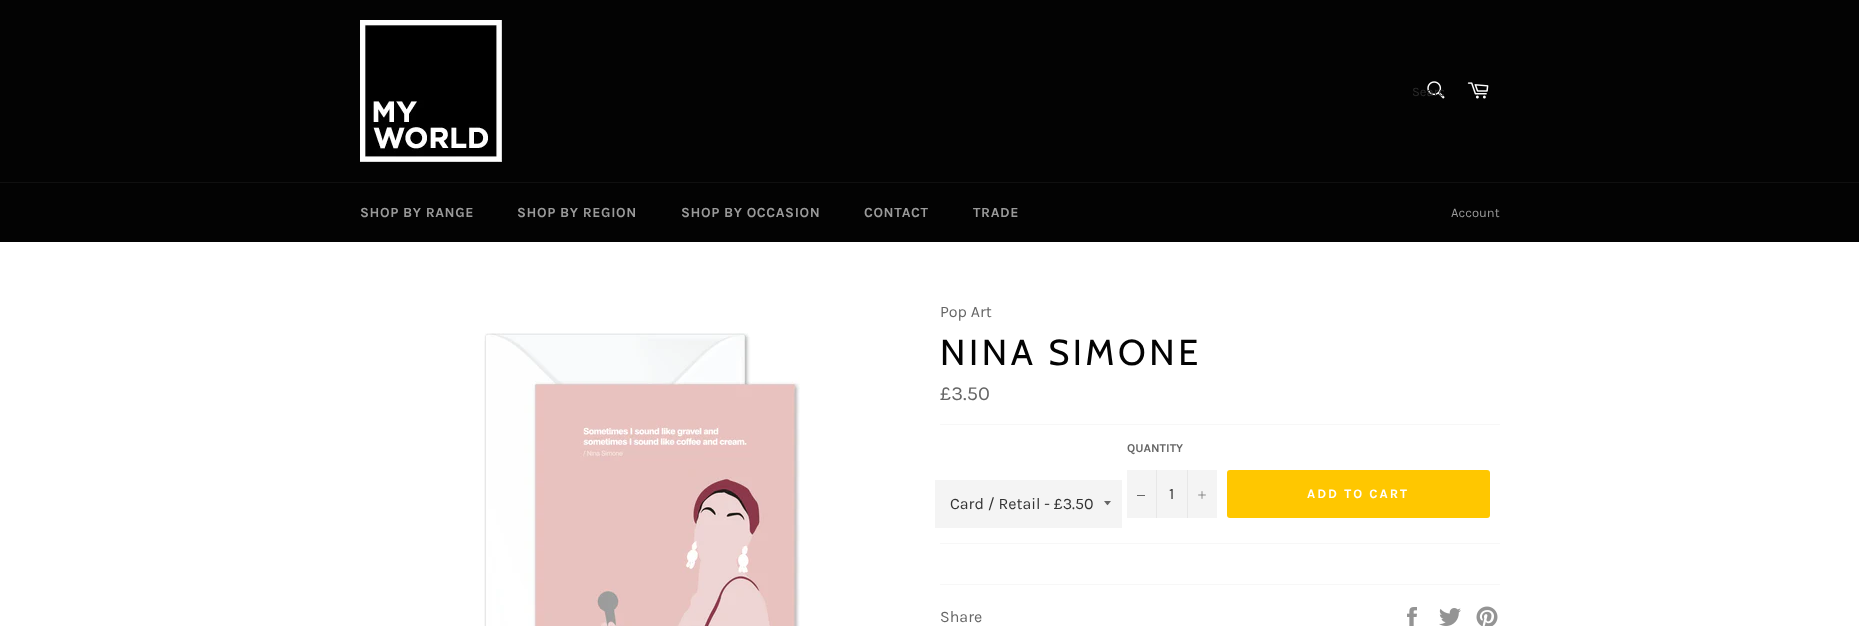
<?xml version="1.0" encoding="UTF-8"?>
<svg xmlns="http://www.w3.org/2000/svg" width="1859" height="626">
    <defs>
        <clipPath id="clip1"><rect x="1412" y="84" width="32" height="15"/></clipPath>
    </defs>
    <rect width="100%" height="100%" fill="#030303"/>
    <image x="360" y="20" width="142" height="142" href="img_01.png"/>
    <image x="1427" y="81" width="18" height="18" href="img_02.png"/>
    <g clip-path="url(#clip1)">
        <text x="1412" y="96" font-family="Karla" font-size="13" fill="#2C2C2C">Searc</text>
    </g>
    <image x="1467" y="82" width="22" height="17" href="img_03.png"/>
    <rect x="0" y="182" width="1859" height="1" fill="#101010"/>
    <text x="360" y="217" font-family="Karla" font-size="14" font-weight="700" letter-spacing="0.6" fill="#9A9A9A">SHOP BY RANGE</text>
    <text x="517" y="217" font-family="Karla" font-size="14" font-weight="700" letter-spacing="0.6" fill="#9A9A9A">SHOP BY REGION</text>
    <text x="681" y="217" font-family="Karla" font-size="14" font-weight="700" letter-spacing="0.6" fill="#9A9A9A">SHOP BY OCCASION</text>
    <text x="864" y="217" font-family="Karla" font-size="14" font-weight="700" letter-spacing="0.6" fill="#9A9A9A">CONTACT</text>
    <text x="973" y="217" font-family="Karla" font-size="14" font-weight="700" letter-spacing="0.6" fill="#9A9A9A">TRADE</text>
    <text x="1451" y="217" font-family="Karla" font-size="13" fill="#9A9A9A">Account</text>
    <rect x="0" y="242" width="1859" height="384" fill="#FFFFFF"/>
    <image x="484" y="333" width="316" height="293" href="img_04.png"/>
    <text x="940" y="317" font-family="Karla" font-size="16" fill="#666666">Pop Art</text>
    <text x="940" y="365" font-family="Cabin" font-size="36" letter-spacing="3.6" fill="#030303">NINA SIMONE</text>
    <text x="940" y="400" font-family="Karla" font-size="20" fill="#666666">£3.50</text>
    <rect x="940" y="424" width="560" height="1" fill="#F7F7F7"/>
    <text x="1127" y="452" font-family="Karla" font-size="12" font-weight="700" fill="#666666">QUANTITY</text>
    <rect x="1127" y="470" width="90" height="48" fill="#F4F4F4"/>
    <rect x="1156" y="470" width="1" height="48" fill="#E7E7E7"/>
    <rect x="1137" y="495" width="8" height="1" fill="#666666"/>
    <text x="1169" y="499" font-family="Karla" font-size="16" fill="#333333">1</text>
    <rect x="1187" y="470" width="1" height="48" fill="#E7E7E7"/>
    <image x="1198" y="491" width="8" height="8" href="img_05.png"/>
    <rect x="1227" y="470" width="263" height="48" rx="3" fill="#FFC700"/>
    <text x="1307" y="498" font-family="Karla" font-size="13" font-weight="700" letter-spacing="2" fill="#FFFFFF">ADD TO CART</text>
    <rect x="935" y="480" width="187" height="48" fill="#F4F4F4"/>
    <path d="M 1104 501 C 1108.5 506.5 1106.5 506.5 1111 501 Z" fill="#666666"/>
    <text x="950" y="509" font-family="Karla" font-size="16" fill="#333333">Card / Retail - £3.50</text>
    <rect x="940" y="543" width="560" height="1" fill="#F7F7F7"/>
    <rect x="940" y="584" width="560" height="1" fill="#F7F7F7"/>
    <text x="940" y="622" font-family="Karla" font-size="16" fill="#666666">Share</text>
    <image x="1407" y="607" width="10" height="19" href="img_06.png"/>
    <image x="1439" y="608" width="22" height="18" href="img_07.png"/>
    <image x="1476" y="606" width="22" height="20" href="img_08.png"/>
</svg>
